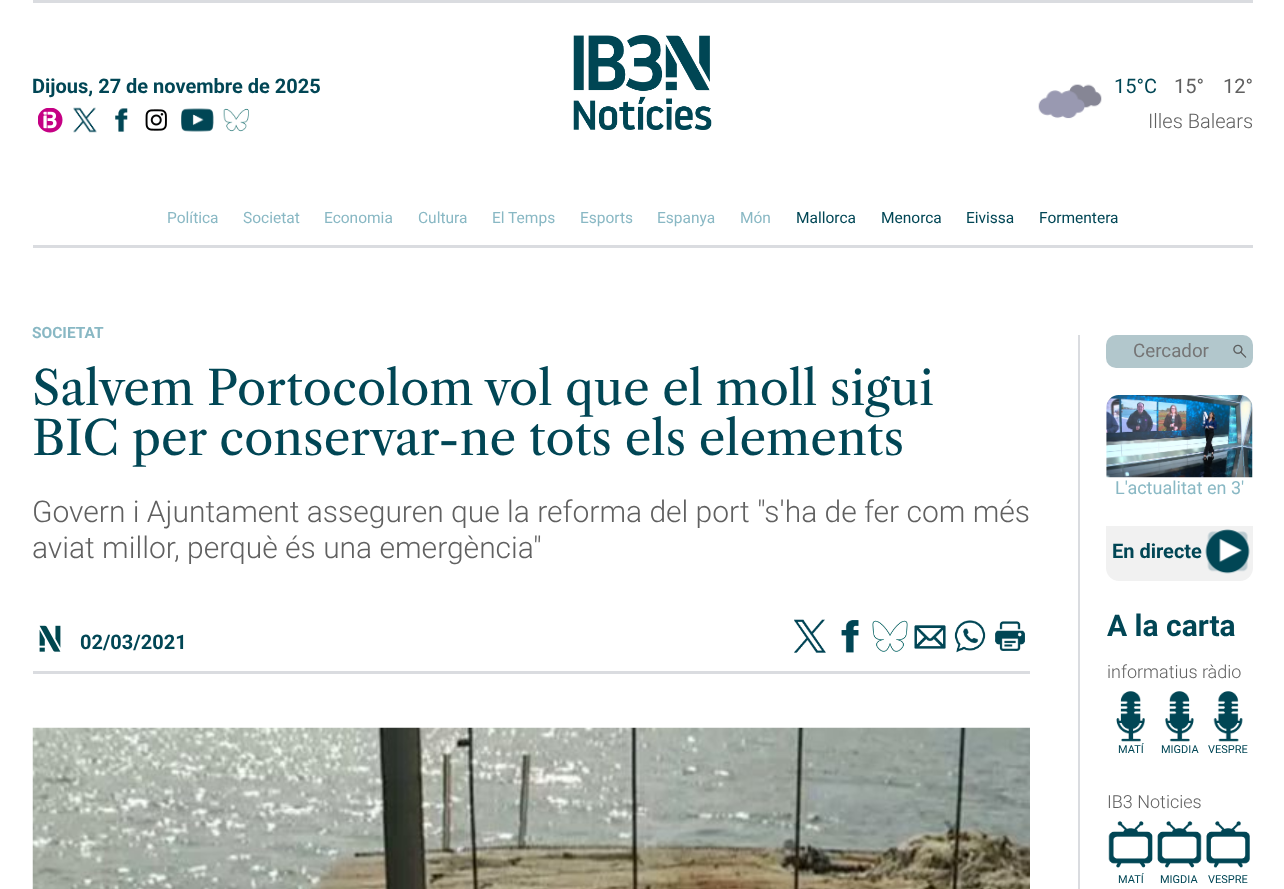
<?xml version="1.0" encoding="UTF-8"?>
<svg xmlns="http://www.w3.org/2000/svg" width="1284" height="889">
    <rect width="100%" height="100%" fill="#FFFFFF"/>
    <rect x="33" y="245" width="1220" height="3" fill="#DADCE0"/>
    <rect x="33" y="0" width="1220" height="3" fill="#DADCE0"/>
    <text x="32" y="93" font-family="Roboto" font-size="20" font-weight="700" fill="#014655">Dijous, 27 de novembre de 2025</text>
    <image x="38" y="108" width="25" height="25" href="img_01.png"/>
    <image x="73" y="107" width="24" height="26" href="img_02.png"/>
    <image x="115" y="108" width="13" height="24" href="img_03.png"/>
    <image x="145" y="109" width="22" height="22" href="img_04.png"/>
    <image x="181" y="108" width="33" height="24" href="img_05.png"/>
    <image x="223" y="108" width="26" height="24" href="img_06.png"/>
    <image x="573" y="35" width="139" height="95" href="img_07.png"/>
    <image x="1038" y="84" width="64" height="35" href="img_08.png"/>
    <text x="1114" y="93" font-family="Roboto" font-size="20" fill="#014655">15°C</text>
    <text x="1174" y="93" font-family="Roboto" font-size="20" fill="#606060">15°</text>
    <text x="1223" y="93" font-family="Roboto" font-size="20" fill="#606060">12°</text>
    <text x="1148" y="128" font-family="Roboto" font-size="20" font-weight="300" fill="#606060">Illes Balears</text>
    <text x="167" y="223" font-family="Roboto" font-size="15.5" fill="#89B8C4">Política</text>
    <text x="243" y="223" font-family="Roboto" font-size="15.5" fill="#89B8C4">Societat</text>
    <text x="324" y="223" font-family="Roboto" font-size="15.5" fill="#89B8C4">Economia</text>
    <text x="418" y="223" font-family="Roboto" font-size="15.5" fill="#89B8C4">Cultura</text>
    <text x="492" y="223" font-family="Roboto" font-size="15.5" fill="#89B8C4">El Temps</text>
    <text x="580" y="223" font-family="Roboto" font-size="15.5" fill="#89B8C4">Esports</text>
    <text x="657" y="223" font-family="Roboto" font-size="15.5" fill="#89B8C4">Espanya</text>
    <text x="740" y="223" font-family="Roboto" font-size="15.5" fill="#89B8C4">Món</text>
    <text x="796" y="223" font-family="Roboto" font-size="15.5" fill="#014655">Mallorca</text>
    <text x="881" y="223" font-family="Roboto" font-size="15.5" fill="#014655">Menorca</text>
    <text x="966" y="223" font-family="Roboto" font-size="15.5" fill="#014655">Eivissa</text>
    <text x="1039" y="223" font-family="Roboto" font-size="15.5" fill="#014655">Formentera</text>
    <text x="32" y="338" font-family="Roboto" font-size="15.5" font-weight="700" fill="#89B8C4">SOCIETAT</text>
    <text font-family="Libre Caslon Text" font-size="47.5" fill="#014655">
        <tspan x="32" y="405">Salvem Portocolom vol que el moll sigui</tspan>
        <tspan x="32" y="455">BIC per conservar-ne tots els elements</tspan>
    </text>
    <text font-family="Roboto" font-size="30" font-weight="300" fill="#606060">
        <tspan x="32" y="522">Govern i Ajuntament asseguren que la reforma del port "s'ha de fer com més</tspan>
        <tspan x="32" y="558">aviat millor, perquè és una emergència"</tspan>
    </text>
    <rect x="33" y="671" width="997" height="3" fill="#DADCE0"/>
    <image x="39" y="625" width="22" height="27" href="img_09.png"/>
    <text x="80" y="649" font-family="Roboto" font-size="20" font-weight="700" fill="#014655">02/03/2021</text>
    <image x="794" y="619" width="32" height="34" href="img_10.png"/>
    <image x="841" y="620" width="18" height="33" href="img_11.png"/>
    <image x="872" y="620" width="36" height="32" href="img_12.png"/>
    <image x="914" y="625" width="32" height="24" href="img_13.png"/>
    <image x="954" y="620" width="32" height="33" href="img_14.png"/>
    <image x="995" y="621" width="30" height="30" href="img_15.png"/>
    <image x="32" y="727" width="998" height="162" href="img_16.png"/>
    <rect x="1078" y="335" width="2" height="554" fill="#DADCE0"/>
    <rect x="1106" y="335" width="147" height="33" rx="10" fill="#B2C7CC"/>
    <text x="1133" y="357" font-family="Roboto" font-size="18.75" fill="#757575">Cercador</text>
    <image x="1233" y="344" width="14" height="14" href="img_17.png"/>
    <image x="1106" y="395" width="147" height="83" href="img_18.png"/>
    <text x="1115" y="494" font-family="Roboto" font-size="18" fill="#89B8C4">L'actualitat en 3'</text>
    <path d="M 1106 526 H 1253 V 568 C 1253 575 1247 581 1240 581 H 1119 C 1112 581 1106 575 1106 568 Z" fill="#F1F1F1"/>
    <text x="1112" y="558" font-family="Roboto" font-size="20" font-weight="700" fill="#014655">En directe</text>
    <image x="1205" y="529" width="45" height="45" href="img_19.png"/>
    <text x="1107" y="636" font-family="Roboto" font-size="30" font-weight="700" fill="#014655">A la carta</text>
    <text x="1107" y="678" font-family="Roboto" font-size="18" font-weight="300" fill="#606060">informatius ràdio</text>
    <image x="1116" y="691" width="29" height="51" href="img_20.png"/>
    <text x="1118" y="753" font-family="Roboto" font-size="11" fill="#014655">MATÍ</text>
    <image x="1165" y="691" width="29" height="51" href="img_21.png"/>
    <text x="1161" y="753" font-family="Roboto" font-size="11" fill="#014655">MIGDIA</text>
    <image x="1213" y="691" width="30" height="51" href="img_22.png"/>
    <text x="1208" y="753" font-family="Roboto" font-size="11" fill="#014655">VESPRE</text>
    <text x="1107" y="808" font-family="Roboto" font-size="18" font-weight="300" fill="#606060">IB3 Noticies</text>
    <image x="1108" y="821" width="45" height="47" href="img_23.png"/>
    <text x="1118" y="883" font-family="Roboto" font-size="11" fill="#014655">MATÍ</text>
    <image x="1157" y="821" width="45" height="47" href="img_24.png"/>
    <text x="1160" y="883" font-family="Roboto" font-size="11" fill="#014655">MIGDIA</text>
    <image x="1206" y="821" width="44" height="47" href="img_25.png"/>
    <text x="1208" y="883" font-family="Roboto" font-size="11" fill="#014655">VESPRE</text>
</svg>
